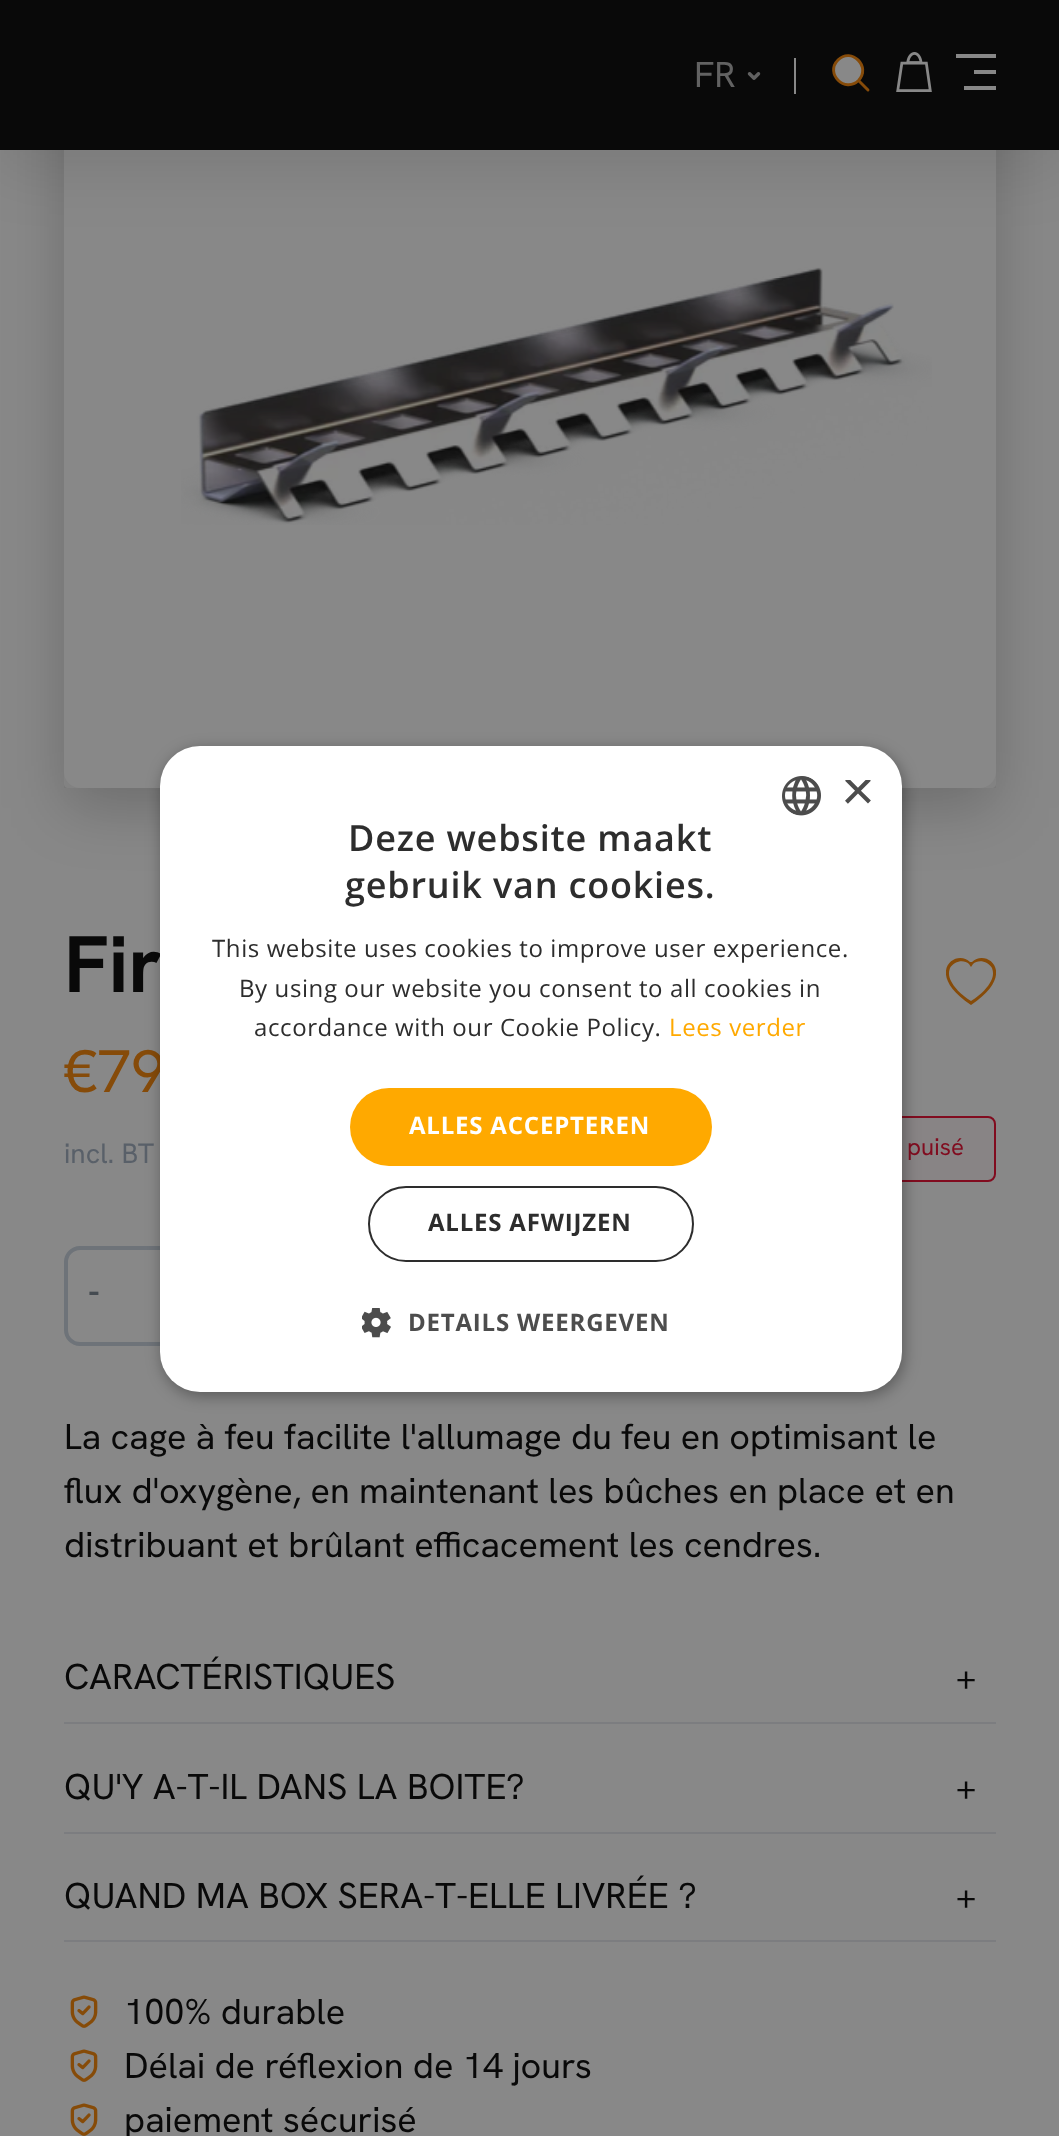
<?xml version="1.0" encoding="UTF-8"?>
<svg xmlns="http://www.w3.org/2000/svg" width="1059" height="2136">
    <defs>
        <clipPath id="clip1"><path d="M 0 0 H 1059 V 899 H 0 Z M 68 -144 H 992 C 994 -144 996 -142 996 -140 V 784 C 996 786 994 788 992 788 H 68 C 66 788 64 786 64 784 V -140 C 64 -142 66 -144 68 -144 Z" clip-rule="evenodd"/></clipPath>
        <filter id="blur1" x="-50%" y="-200%" width="200%" height="500%"><feGaussianBlur stdDeviation="30"/></filter>
        <clipPath id="clip2"><rect x="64" y="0" width="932" height="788"/></clipPath>
        <clipPath id="clip3"><rect x="946" y="958" width="50" height="50"/></clipPath>
        <filter id="blur2" x="-50%" y="-200%" width="200%" height="500%"><feGaussianBlur stdDeviation="8"/></filter>
        <clipPath id="clip4"><rect x="842" y="780" width="30" height="30"/></clipPath>
    </defs>
    <rect width="100%" height="100%" fill="#888888"/>
    <g clip-path="url(#clip1)">
        <rect x="64" y="-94" width="932" height="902" rx="4" fill="#090909" fill-opacity="0.2" filter="url(#blur1)"/>
    </g>
    <g clip-path="url(#clip2)">
        <rect x="64" y="-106" width="932" height="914" rx="16" fill="#090909" fill-opacity="0.1" filter="url(#blur1)"/>
    </g>
    <rect x="64" y="-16" width="932" height="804" rx="16" fill="#888888"/>
    <rect x="0" y="20" width="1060" height="150" fill="#090909" fill-opacity="0.1" filter="url(#blur1)"/>
    <rect x="0" y="0" width="1059" height="150" fill="#090909"/>
    <rect x="794" y="58" width="2" height="36" fill="#888888"/>
    <text x="694" y="87" font-family="Hanken Grotesk" font-size="36" fill="#626262">FR</text>
    <image x="747" y="72" width="14" height="8" href="img_01.png"/>
    <path d="M 868 90 L 858.5 80.5 M 858.5 80.5 C 871.5 67 851.5 46.5 838 60 C 824.5 73.5 845 93.5 858.5 80.5 Z" fill="#888888" stroke="#864B09" stroke-width="2.9" stroke-linecap="round" stroke-linejoin="round"/>
    <image x="896" y="52" width="36" height="40" href="img_02.png"/>
    <path d="M 974 70 H 996 V 74 H 974 Z M 956 54 V 58 H 996 V 54 Z M 964 90 H 996 V 86 H 964 Z" fill="#888888"/>
    <image x="181" y="267" width="751" height="258" href="img_03.png"/>
    <text x="64" y="992" font-family="Hanken Grotesk" font-size="80" font-weight="700" fill="#090909">Fir</text>
    <g clip-path="url(#clip3)">
        <path d="M 971 967 L 969 964 C 964 959 954 961 950 968 C 949 971 948 975 951 981 C 954 987 960 994 971 1001 C 982 994 988 987 991 981 C 994 975 993 971 992 968 C 988 961 978 959 973 964 Z M 971 1005 C 923 973 956 948 970 962 H 971 H 972 C 986 948 1019 973 971 1005 Z" fill="#864B09"/>
    </g>
    <text x="64" y="1092" font-family="Hanken Grotesk" font-size="60" fill="#864B09">€79</text>
    <text x="64" y="1163" font-family="Hanken Grotesk" font-size="28" fill="#596069">incl. BT</text>
    <rect x="863" y="1117" width="132" height="64" rx="7" fill="#888485" stroke="#810C1F" stroke-width="2"/>
    <text x="907" y="1155" font-family="Hanken Grotesk" font-size="24" fill="#810C1F">puisé</text>
    <rect x="66" y="1248" width="206" height="96" rx="14" fill="none" stroke="#6E7379" stroke-width="4"/>
    <text x="88" y="1304" font-family="Hanken Grotesk" font-size="36" font-weight="700" fill="#454B51">-</text>
    <text font-family="Hanken Grotesk" font-size="36" fill="#090909">
        <tspan x="64" y="1449">La cage à feu facilite l'allumage du feu en optimisant le</tspan>
        <tspan x="64" y="1503">flux d'oxygène, en maintenant les bûches en place et en</tspan>
        <tspan x="64" y="1557">distribuant et brûlant efficacement les cendres.</tspan>
    </text>
    <rect x="64" y="1722" width="932" height="2" fill="#7C7D80"/>
    <text x="64" y="1689" font-family="Hanken Grotesk" font-size="36" fill="#090909">CARACTÉRISTIQUES</text>
    <text x="956" y="1689" font-family="Hanken Grotesk" font-size="36" fill="#090909">+</text>
    <rect x="64" y="1832" width="932" height="2" fill="#7C7D80"/>
    <text x="64" y="1799" font-family="Hanken Grotesk" font-size="36" fill="#090909">QU'Y A-T-IL DANS LA BOITE?</text>
    <text x="956" y="1799" font-family="Hanken Grotesk" font-size="36" fill="#090909">+</text>
    <rect x="64" y="1940" width="932" height="2" fill="#7C7D80"/>
    <text x="64" y="1908" font-family="Hanken Grotesk" font-size="36" fill="#090909">QUAND MA BOX SERA-T-ELLE LIVRÉE ?</text>
    <text x="956" y="1908" font-family="Hanken Grotesk" font-size="36" fill="#090909">+</text>
    <image x="70" y="1995" width="28" height="33" href="img_04.png"/>
    <text x="124" y="2024" font-family="Hanken Grotesk" font-size="36" fill="#090909">100% durable</text>
    <image x="70" y="2049" width="28" height="33" href="img_04.png"/>
    <text x="124" y="2078" font-family="Hanken Grotesk" font-size="36" fill="#090909">Délai de réflexion de 14 jours</text>
    <image x="70" y="2103" width="28" height="33" href="img_04.png"/>
    <text x="124" y="2132" font-family="Hanken Grotesk" font-size="36" fill="#090909">paiement sécurisé</text>
    <rect x="162" y="750" width="742" height="646" rx="40" fill="#000000" fill-opacity="0.35" filter="url(#blur2)"/>
    <rect x="160" y="746" width="742" height="646" rx="40" fill="#FFFFFF"/>
    <image x="782" y="776" width="39" height="40" href="img_05.png"/>
    <g clip-path="url(#clip4)">
        <text x="841" y="810" font-family="Liberation Sans" font-size="58" fill="#4D4D4D">×</text>
    </g>
    <text x="348" y="851" font-family="Open Sans" font-size="36" font-weight="600" letter-spacing="0.8" fill="#2D2D2D">Deze website maakt</text>
    <text x="345" y="898" font-family="Open Sans" font-size="36" font-weight="600" letter-spacing="0.8" fill="#2D2D2D">gebruik van cookies.</text>
    <text x="212" y="957" font-family="Open Sans" font-size="24" letter-spacing="0.6" fill="#2D2D2D">This website uses cookies to improve user experience.</text>
    <text x="239" y="997" font-family="Open Sans" font-size="24" letter-spacing="0.6" fill="#2D2D2D">By using our website you consent to all cookies in</text>
    <text x="254" y="1036" font-family="Open Sans" font-size="24" letter-spacing="0.6" fill="#2D2D2D">accordance with our Cookie Policy.</text>
    <text x="669" y="1036" font-family="Open Sans" font-size="24" letter-spacing="0.6" fill="#FFA900">Lees verder</text>
    <rect x="350" y="1088" width="362" height="78" rx="39" fill="#FFA900"/>
    <text x="409" y="1134" font-family="Open Sans" font-size="24" font-weight="700" letter-spacing="0.8" fill="#FFFFFF">ALLES ACCEPTEREN</text>
    <rect x="369" y="1187" width="324" height="74" rx="37" fill="none" stroke="#2D2D2D" stroke-width="2"/>
    <text x="428" y="1231" font-family="Open Sans" font-size="24" font-weight="700" letter-spacing="0.8" fill="#2D2D2D">ALLES AFWIJZEN</text>
    <image x="362" y="1308" width="29" height="30" href="img_06.png"/>
    <text x="408" y="1331" font-family="Open Sans" font-size="24" font-weight="700" letter-spacing="0.8" fill="#4D4D4D">DETAILS WEERGEVEN</text>
</svg>
